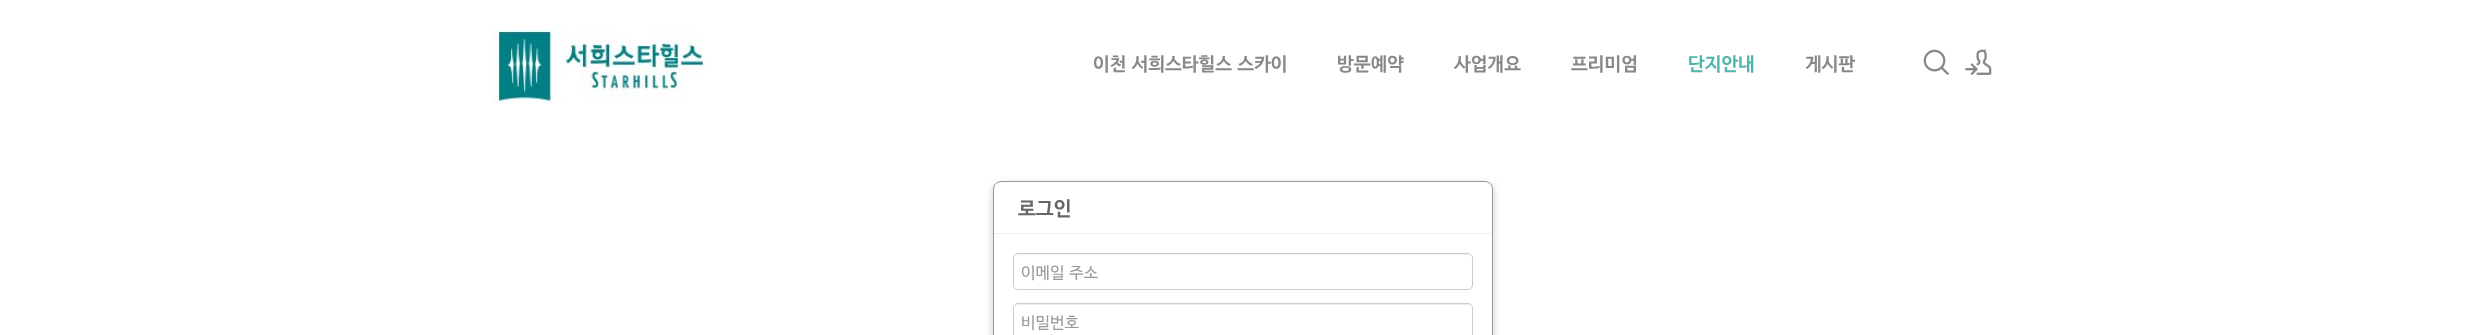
<?xml version="1.0" encoding="UTF-8"?>
<svg xmlns="http://www.w3.org/2000/svg" width="2485" height="335">
    <defs>
        <filter id="blur1" x="-50%" y="-200%" width="200%" height="500%"><feGaussianBlur stdDeviation="4.5"/></filter>
    </defs>
    <rect width="100%" height="100%" fill="#FFFFFF"/>
    <image x="492" y="29" width="213" height="75" href="img_01.png"/>
    <text x="1093" y="70" word-spacing="1" font-family="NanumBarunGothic" font-size="18.75" font-weight="700" fill="#888888">이천 서희스타힐스 스카이</text>
    <text x="1337" y="70" font-family="NanumBarunGothic" font-size="18.75" font-weight="700" fill="#888888">방문예약</text>
    <text x="1454" y="70" font-family="NanumBarunGothic" font-size="18.75" font-weight="700" fill="#888888">사업개요</text>
    <text x="1571" y="70" font-family="NanumBarunGothic" font-size="18.75" font-weight="700" fill="#888888">프리미엄</text>
    <text x="1688" y="70" font-family="NanumBarunGothic" font-size="18.75" font-weight="700" fill="#4DB6AC">단지안내</text>
    <text x="1805" y="70" font-family="NanumBarunGothic" font-size="18.75" font-weight="700" fill="#888888">게시판</text>
    <image x="1923" y="49" width="26" height="26" href="img_02.png"/>
    <image x="1965" y="49" width="27" height="26" href="img_03.png"/>
    <rect x="993" y="185" width="500" height="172" rx="8" fill="#CCCCCC" filter="url(#blur1)"/>
    <rect x="993.5" y="181.5" width="499" height="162" rx="7.5" fill="#FFFFFF" stroke="#999999"/>
    <rect x="994" y="233" width="497" height="1" fill="#EEEEEE"/>
    <text x="1018" y="215" font-family="NanumBarunGothic" font-size="20" font-weight="700" fill="#666666">로그인</text>
    <path d="M 1018 255 H 1468 C 1470 255 1471 257 1471 259 C 1471 256 1470 254 1467 254 H 1018 L 1016 255 L 1015 256 L 1014 259 C 1014 257 1015 255 1018 255 Z" fill="#ECECEC"/>
    <rect x="1013.5" y="253.5" width="459" height="36" rx="4.5" fill="none" stroke="#CCCCCC"/>
    <text x="1021" y="278" word-spacing="1" font-family="NanumBarunGothic" font-size="16.25" fill="#999999">이메일 주소</text>
    <path d="M 1018 305 H 1468 C 1470 305 1471 307 1471 309 C 1471 306 1470 304 1467 304 H 1018 L 1016 305 L 1015 306 L 1014 309 C 1014 307 1015 305 1018 305 Z" fill="#ECECEC"/>
    <rect x="1013.5" y="303.5" width="459" height="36" rx="4.5" fill="none" stroke="#CCCCCC"/>
    <text x="1021" y="328" font-family="NanumBarunGothic" font-size="16.25" fill="#999999">비밀번호</text>
</svg>
